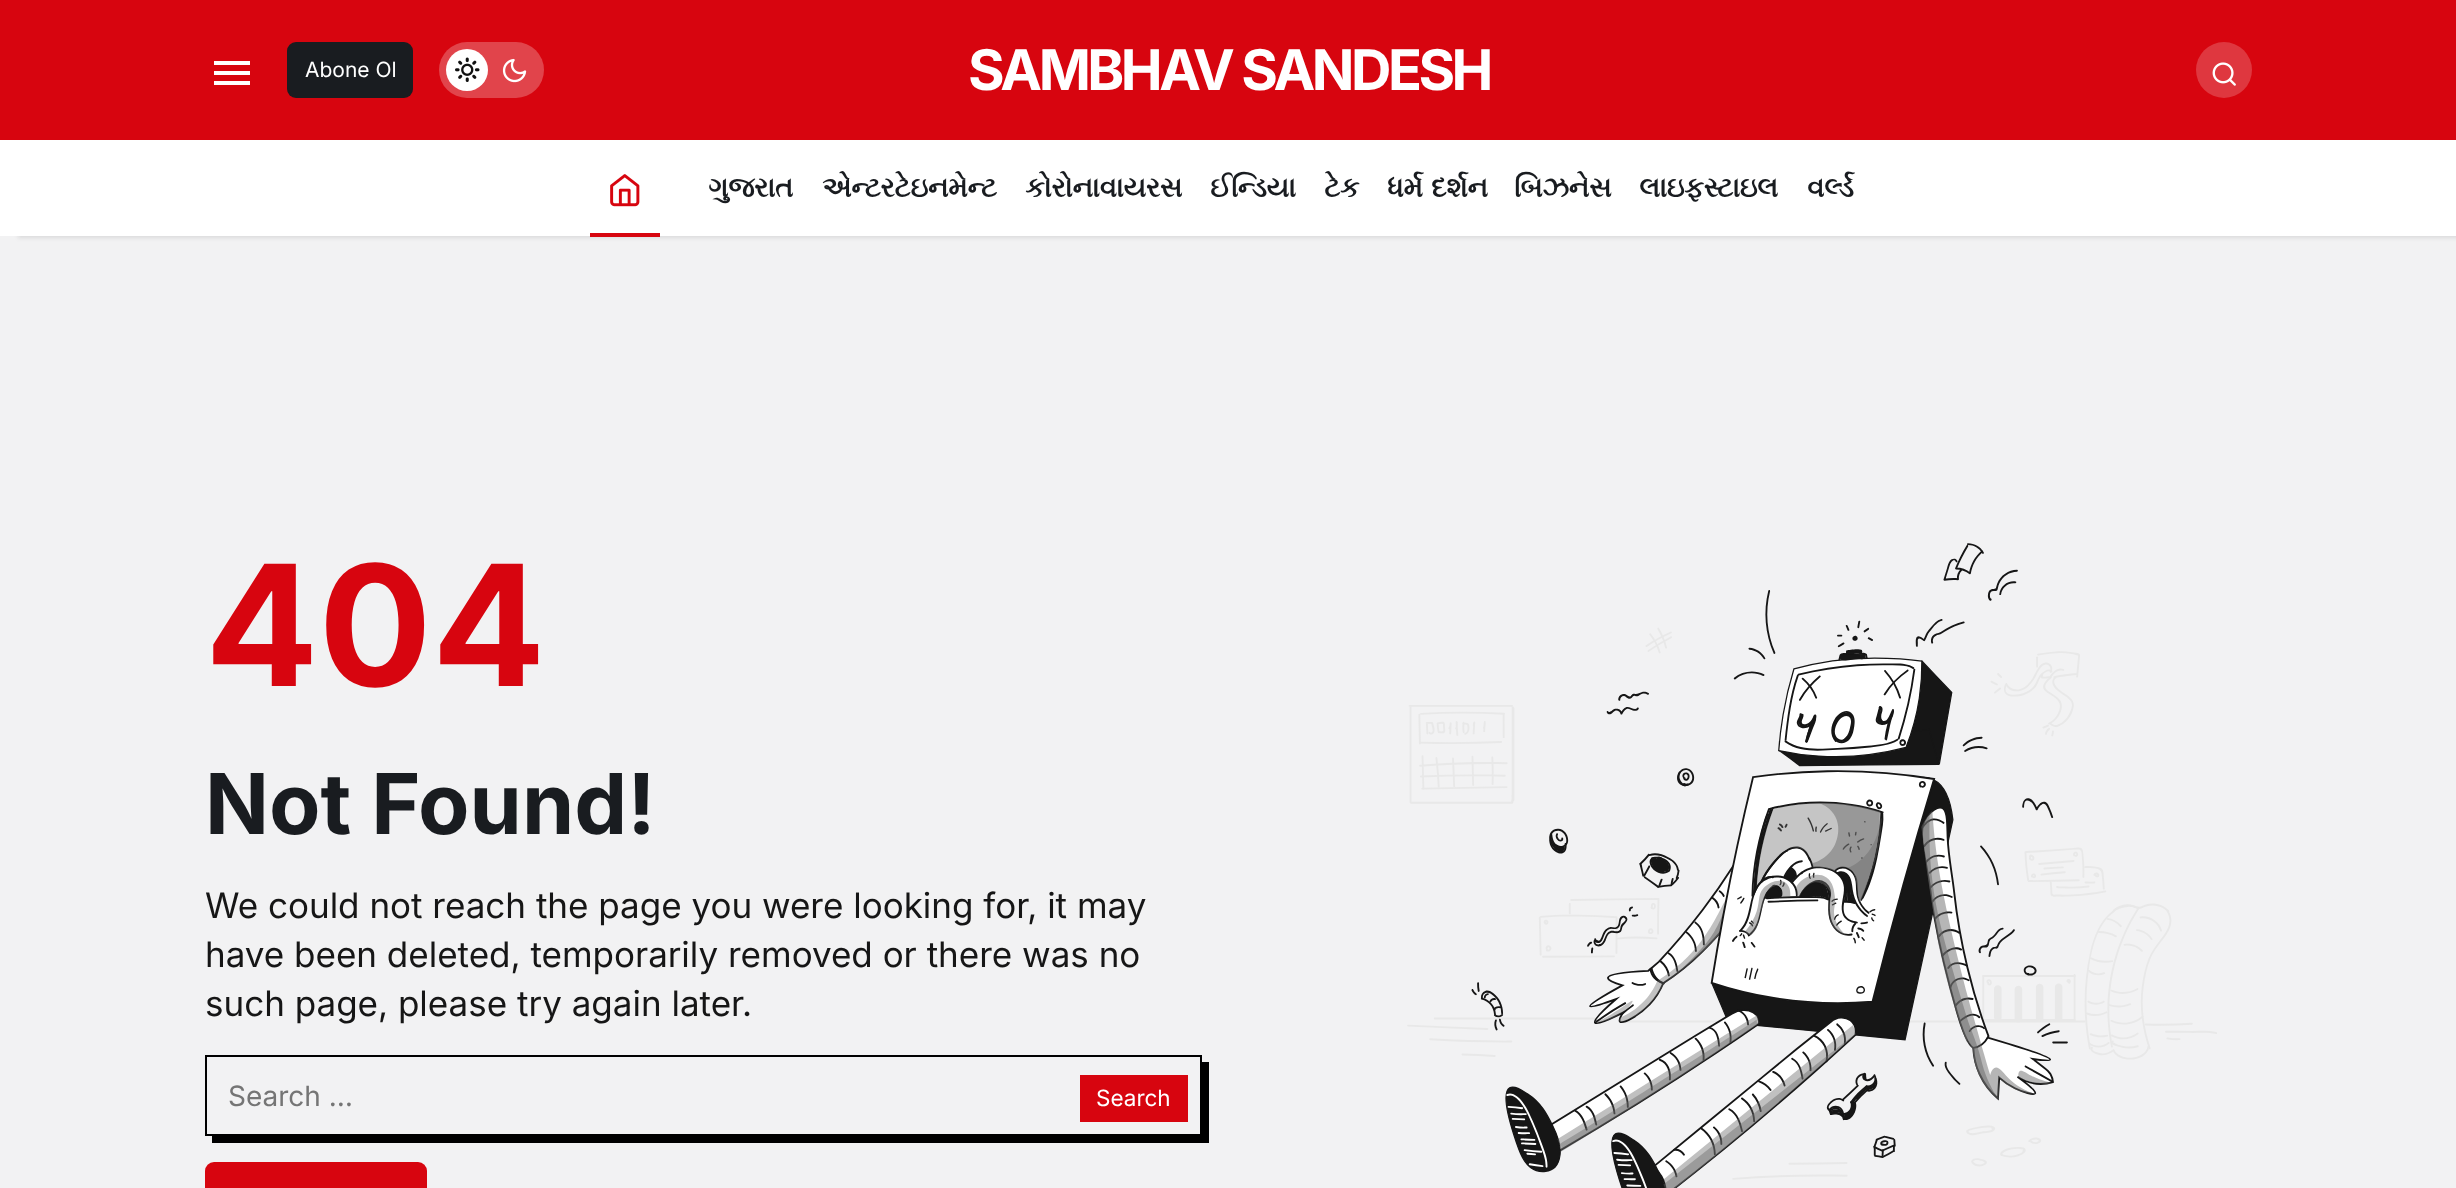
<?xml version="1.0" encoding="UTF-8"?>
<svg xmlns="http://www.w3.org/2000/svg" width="2456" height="1188">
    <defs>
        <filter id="blur1" x="-50%" y="-200%" width="200%" height="500%"><feGaussianBlur stdDeviation="2"/></filter>
    </defs>
    <rect width="100%" height="100%" fill="#F2F2F3"/>
    <rect x="18" y="142" width="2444" height="96" fill="#000000" fill-opacity="0.1" filter="url(#blur1)"/>
    <rect x="0" y="0" width="2456" height="140" fill="#D7050F"/>
    <path d="M 214 61 H 250 V 65 H 214 Z M 214 75 V 71 H 250 V 75 Z M 214 85 V 81 H 250 V 85 Z" fill="#FFFFFF"/>
    <rect x="287" y="42" width="126" height="56" rx="9" fill="#191C20"/>
    <text x="305" y="77" font-family="Inter" font-size="21" fill="#FFFFFF">Abone Ol</text>
    <rect x="439" y="42" width="105" height="56" rx="28" fill="#E1444B"/>
    <circle cx="467" cy="70" r="21" fill="#FFFFFF"/>
    <image x="455" y="57" width="25" height="25" href="img_01.png"/>
    <image x="502" y="58" width="25" height="25" href="img_02.png"/>
    <text x="968" y="90" font-family="Inter" font-size="56" font-weight="700" letter-spacing="-3.5" fill="#FFFFFF">SAMBHAV SANDESH</text>
    <circle cx="2224" cy="70" r="28" fill="#DF373F"/>
    <image x="2212" y="62" width="24" height="24" href="img_03.png"/>
    <rect x="0" y="140" width="2456" height="96" fill="#FFFFFF"/>
    <image x="610" y="174" width="30" height="33" href="img_04.png"/>
    <rect x="590" y="233" width="70" height="4" fill="#D7050F"/>
    <text x="708" y="197" font-family="FreeSerif" font-size="28" font-weight="700" letter-spacing="-0.5" fill="#191C20">ગુજરાત</text>
    <text x="822" y="197" font-family="FreeSerif" font-size="28" font-weight="700" letter-spacing="-0.5" fill="#191C20">એન્ટરટેઇનમેન્ટ</text>
    <text x="1025" y="197" font-family="FreeSerif" font-size="28" font-weight="700" letter-spacing="-0.5" fill="#191C20">કોરોનાવાયરસ</text>
    <text x="1210" y="197" font-family="FreeSerif" font-size="28" font-weight="700" letter-spacing="-0.5" fill="#191C20">ઈન્ડિયા</text>
    <text x="1324" y="197" font-family="FreeSerif" font-size="28" font-weight="700" letter-spacing="-0.5" fill="#191C20">ટેક</text>
    <text x="1387" y="197" word-spacing="2" font-family="FreeSerif" font-size="28" font-weight="700" letter-spacing="-0.5" fill="#191C20">ધર્મ દર્શન</text>
    <text x="1514" y="197" font-family="FreeSerif" font-size="28" font-weight="700" letter-spacing="-0.5" fill="#191C20">બિઝનેસ</text>
    <text x="1639" y="197" font-family="FreeSerif" font-size="28" font-weight="700" letter-spacing="-0.5" fill="#191C20">લાઇફસ્ટાઇલ</text>
    <text x="1807" y="197" font-family="FreeSerif" font-size="28" font-weight="700" letter-spacing="-0.5" fill="#191C20">વર્લ્ડ</text>
    <text x="205" y="686" font-family="Inter" font-size="168" font-weight="700" fill="#D7050F">404</text>
    <text x="205" y="834" font-family="Inter" font-size="84" font-weight="700" fill="#191C20">Not Found!</text>
    <text font-family="Inter" font-size="35" fill="#161616">
        <tspan x="205" y="918">We could not reach the page you were looking for, it may</tspan>
        <tspan x="205" y="967">have been deleted, temporarily removed or there was no</tspan>
        <tspan x="205" y="1016">such page, please try again later.</tspan>
    </text>
    <path d="M 212 1136 V 1143 H 1209 V 1062 H 1202 V 1136 Z" fill="#000000"/>
    <rect x="206" y="1056" width="995" height="79" fill="none" stroke="#000000" stroke-width="2"/>
    <text x="228" y="1106" font-family="Inter" font-size="28" fill="#757575">Search …</text>
    <rect x="1080" y="1075" width="108" height="47" fill="#D7050F"/>
    <text x="1096" y="1106" font-family="Inter" font-size="22.5" fill="#FFFFFF">Search</text>
    <rect x="205" y="1162" width="222" height="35" rx="9" fill="#D7050F"/>
    <image x="1407" y="543" width="810" height="645" href="img_05.png"/>
</svg>
